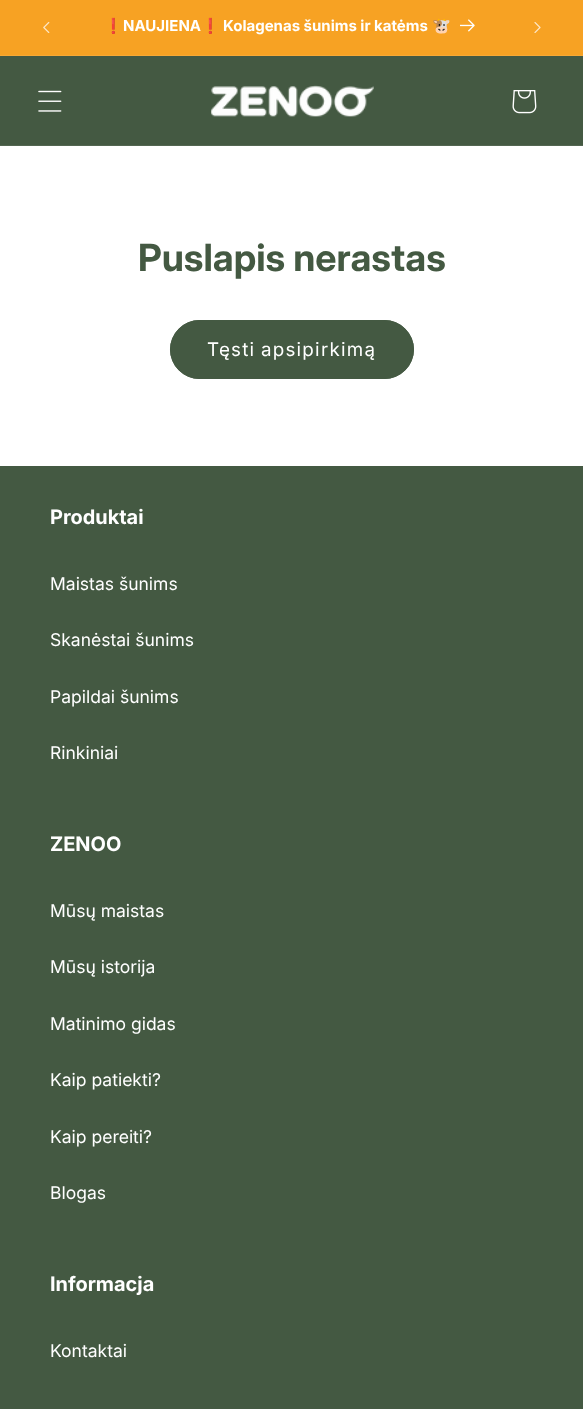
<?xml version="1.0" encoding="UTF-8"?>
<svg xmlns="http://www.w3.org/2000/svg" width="583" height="1409">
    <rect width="100%" height="100%" fill="#FFFFFF"/>
    <rect x="0" y="0" width="583" height="55" fill="#F7A223"/>
    <rect x="0" y="55" width="583" height="1" fill="#F8A935"/>
    <image x="43" y="21" width="7" height="12" href="img_01.png"/>
    <text x="104" y="31" font-family="Noto Color Emoji" font-size="15" font-weight="700" fill="#FFFFFF">❗️</text>
    <text x="123" y="31" font-family="'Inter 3'" font-size="15" font-weight="700" fill="#FFFFFF">NAUJIENA</text>
    <text x="201" y="31" font-family="Noto Color Emoji" font-size="15" font-weight="700" fill="#FFFFFF">❗️</text>
    <text x="223" y="31" font-family="'Inter 3'" font-size="15" font-weight="700" fill="#FFFFFF">Kolagenas šunims ir katėms</text>
    <text x="432" y="31" font-family="Noto Color Emoji" font-size="15" font-weight="700" fill="#FFFFFF">🐮</text>
    <image x="460" y="19" width="15" height="13" href="img_02.png"/>
    <image x="534" y="22" width="7" height="11" href="img_03.png"/>
    <rect x="0" y="56" width="583" height="89" fill="#445942"/>
    <rect x="0" y="145" width="583" height="1" fill="#536651"/>
    <image x="38" y="90" width="24" height="22" href="img_04.png"/>
    <image x="211" y="85" width="163" height="32" href="img_05.png"/>
    <image x="512" y="90" width="25" height="24" href="img_06.png"/>
    <text x="138" y="271" font-family="Inter" font-size="37.5" font-weight="700" fill="#445942">Puslapis nerastas</text>
    <rect x="170" y="320" width="244" height="59" rx="29.5" fill="#445942"/>
    <rect x="170.5" y="320.5" width="243" height="58" rx="29" fill="none" stroke="#445942"/>
    <text x="207" y="356" word-spacing="-1" font-family="Inter" font-size="18.75" letter-spacing="1.25" fill="#FFFFFF">Tęsti apsipirkimą</text>
    <rect x="0" y="466" width="583" height="943" fill="#445942"/>
    <text x="50" y="524" font-family="'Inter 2'" font-size="20" font-weight="700" fill="#FFFFFF">Produktai</text>
    <text x="50" y="590" font-family="Inter" font-size="17.5" fill="#FFFFFF">Maistas šunims</text>
    <text x="50" y="646" font-family="Inter" font-size="17.5" fill="#FFFFFF">Skanėstai šunims</text>
    <text x="50" y="703" font-family="Inter" font-size="17.5" fill="#FFFFFF">Papildai šunims</text>
    <text x="50" y="759" font-family="Inter" font-size="17.5" fill="#FFFFFF">Rinkiniai</text>
    <text x="50" y="851" font-family="'Inter 2'" font-size="20" font-weight="700" fill="#FFFFFF">ZENOO</text>
    <text x="50" y="917" font-family="Inter" font-size="17.5" fill="#FFFFFF">Mūsų maistas</text>
    <text x="50" y="973" font-family="Inter" font-size="17.5" fill="#FFFFFF">Mūsų istorija</text>
    <text x="50" y="1030" font-family="Inter" font-size="17.5" fill="#FFFFFF">Matinimo gidas</text>
    <text x="50" y="1086" font-family="Inter" font-size="17.5" fill="#FFFFFF">Kaip patiekti?</text>
    <text x="50" y="1143" font-family="Inter" font-size="17.5" fill="#FFFFFF">Kaip pereiti?</text>
    <text x="50" y="1199" font-family="Inter" font-size="17.5" fill="#FFFFFF">Blogas</text>
    <text x="50" y="1291" font-family="'Inter 2'" font-size="20" font-weight="700" fill="#FFFFFF">Informacja</text>
    <text x="50" y="1357" font-family="Inter" font-size="17.5" fill="#FFFFFF">Kontaktai</text>
</svg>
